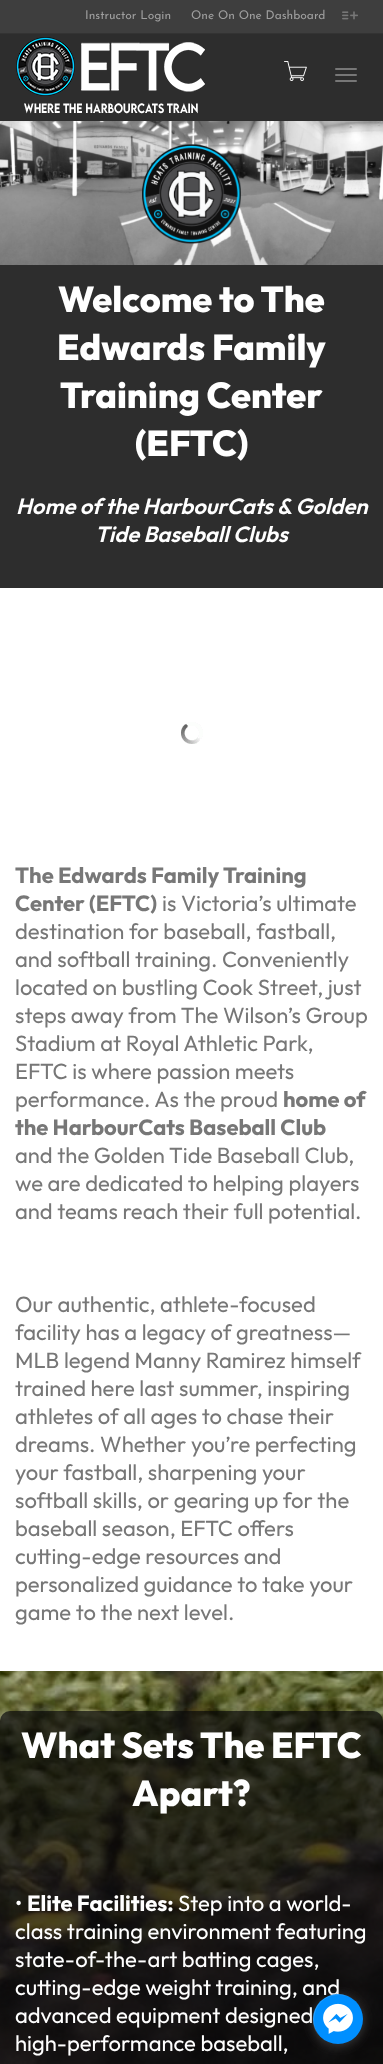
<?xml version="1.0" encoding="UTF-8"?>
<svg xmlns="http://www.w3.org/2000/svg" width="383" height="2064">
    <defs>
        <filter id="blur1" x="-50%" y="-200%" width="200%" height="500%"><feGaussianBlur stdDeviation="5.5"/></filter>
    </defs>
    <rect width="100%" height="100%" fill="#FFFFFF"/>
    <rect x="0" y="0" width="383" height="33" fill="#3E3E3E"/>
    <rect x="0" y="33" width="383" height="1" fill="#333333"/>
    <text x="85" y="19" font-family="Josefin Sans" font-size="12" font-weight="100" fill="#9F9F9F">Instructor Login</text>
    <text x="191" y="19" font-family="Josefin Sans" font-size="12" font-weight="100" fill="#9F9F9F">One On One Dashboard</text>
    <image x="342" y="11" width="16" height="9" href="img_01.png"/>
    <rect x="0" y="34" width="383" height="87" fill="#2D2D2D"/>
    <image x="16" y="37" width="189" height="77" href="img_02.png"/>
    <image x="284" y="61" width="23" height="20" href="img_03.png"/>
    <rect x="335" y="68" width="22" height="2" rx="1" fill="#777777"/>
    <rect x="335" y="74" width="22" height="2" rx="1" fill="#777777"/>
    <rect x="335" y="80" width="22" height="2" rx="1" fill="#777777"/>
    <image x="0" y="121" width="383" height="144" href="img_04.png"/>
    <image x="142" y="144" width="99" height="100" href="img_05.png"/>
    <rect x="0" y="265" width="383" height="323" fill="#2D2D2D"/>
    <text x="58" y="312" font-family="Outfit" font-size="36" font-weight="800" fill="#FFFFFF">Welcome to The</text>
    <text x="57" y="360" font-family="Outfit" font-size="36" font-weight="800" fill="#FFFFFF">Edwards Family</text>
    <text x="60" y="408" font-family="Outfit" font-size="36" font-weight="800" fill="#FFFFFF">Training Center</text>
    <text x="135" y="456" font-family="Outfit" font-size="36" font-weight="800" fill="#FFFFFF">(EFTC)</text>
    <text x="16" y="514" font-family="Outfit" font-size="22" font-weight="600" font-style="italic" fill="#FFFFFF">Home of the HarbourCats &amp; Golden</text>
    <text x="95" y="542" font-family="Outfit" font-size="22" font-weight="600" font-style="italic" fill="#FFFFFF">Tide Baseball Clubs</text>
    <image x="181" y="722" width="22" height="22" href="img_06.png"/>
    <text font-family="Outfit" font-size="22" font-weight="700" fill="#777777">
        <tspan x="15" y="883">The Edwards Family Training</tspan>
        <tspan x="15" y="911">Center (EFTC)</tspan>
    </text>
    <text x="162" y="911" font-family="Outfit" font-size="22" fill="#777777">is Victoria’s ultimate</text>
    <text font-family="Outfit" font-size="22" fill="#777777">
        <tspan x="15" y="939">destination for baseball, fastball,</tspan>
        <tspan x="15" y="967">and softball training. Conveniently</tspan>
        <tspan x="15" y="995">located on bustling Cook Street, just</tspan>
        <tspan x="15" y="1023">steps away from The Wilson’s Group</tspan>
        <tspan x="15" y="1051">Stadium at Royal Athletic Park,</tspan>
        <tspan x="15" y="1079">EFTC is where passion meets</tspan>
        <tspan x="15" y="1107">performance. As the proud</tspan>
    </text>
    <text x="283" y="1107" font-family="Outfit" font-size="22" font-weight="700" fill="#777777">home of</text>
    <text x="15" y="1135" font-family="Outfit" font-size="22" font-weight="700" fill="#777777">the HarbourCats Baseball Club</text>
    <text font-family="Outfit" font-size="22" fill="#777777">
        <tspan x="15" y="1163">and the Golden Tide Baseball Club,</tspan>
        <tspan x="15" y="1191">we are dedicated to helping players</tspan>
        <tspan x="15" y="1219">and teams reach their full potential.</tspan>
    </text>
    <text font-family="Outfit" font-size="22" fill="#777777">
        <tspan x="15" y="1312">Our authentic, athlete-focused</tspan>
        <tspan x="15" y="1340">facility has a legacy of greatness—</tspan>
        <tspan x="15" y="1368">MLB legend Manny Ramirez himself</tspan>
        <tspan x="15" y="1396">trained here last summer, inspiring</tspan>
        <tspan x="15" y="1424">athletes of all ages to chase their</tspan>
        <tspan x="15" y="1452">dreams. Whether you’re perfecting</tspan>
        <tspan x="15" y="1480">your fastball, sharpening your</tspan>
        <tspan x="15" y="1508">softball skills, or gearing up for the</tspan>
        <tspan x="15" y="1536">baseball season, EFTC offers</tspan>
        <tspan x="15" y="1564">cutting-edge resources and</tspan>
        <tspan x="15" y="1592">personalized guidance to take your</tspan>
        <tspan x="15" y="1620">game to the next level.</tspan>
    </text>
    <image x="0" y="1671" width="383" height="393" href="img_07.png"/>
    <rect x="0" y="1711" width="383" height="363" rx="10" fill="#0A0A0A" fill-opacity="0.7"/>
    <text x="21" y="1758" font-family="Outfit" font-size="36" font-weight="800" fill="#FFFFFF">What Sets The EFTC</text>
    <text x="132" y="1806" font-family="Outfit" font-size="36" font-weight="800" fill="#FFFFFF">Apart?</text>
    <text x="15" y="1911" font-family="Outfit" font-size="22" fill="#FFFFFF">•</text>
    <text x="27" y="1911" font-family="Outfit" font-size="22" font-weight="700" fill="#FFFFFF">Elite Facilities:</text>
    <text x="178" y="1911" font-family="Outfit" font-size="22" fill="#FFFFFF">Step into a world-</text>
    <text font-family="Outfit" font-size="22" fill="#FFFFFF">
        <tspan x="15" y="1939">class training environment featuring</tspan>
        <tspan x="15" y="1967">state-of-the-art batting cages,</tspan>
        <tspan x="15" y="1995">cutting-edge weight training, and</tspan>
        <tspan x="15" y="2023">advanced equipment designed</tspan>
        <tspan x="15" y="2051">high-performance baseball,</tspan>
    </text>
    <rect x="313" y="1996" width="50" height="50" rx="25" fill="#808080" fill-opacity="0.4" filter="url(#blur1)"/>
    <circle cx="338" cy="2019" r="25" fill="#008FFF"/>
    <path d="M 339 1995 C 344 1995 348 1996 352 1998 C 328 1983 301 2013 318 2035 C 309 2020 316 1995 339 1995 Z" fill="#FFFFFF" fill-opacity="0.15"/>
    <image x="323" y="2003" width="30" height="31" href="img_08.png"/>
</svg>
